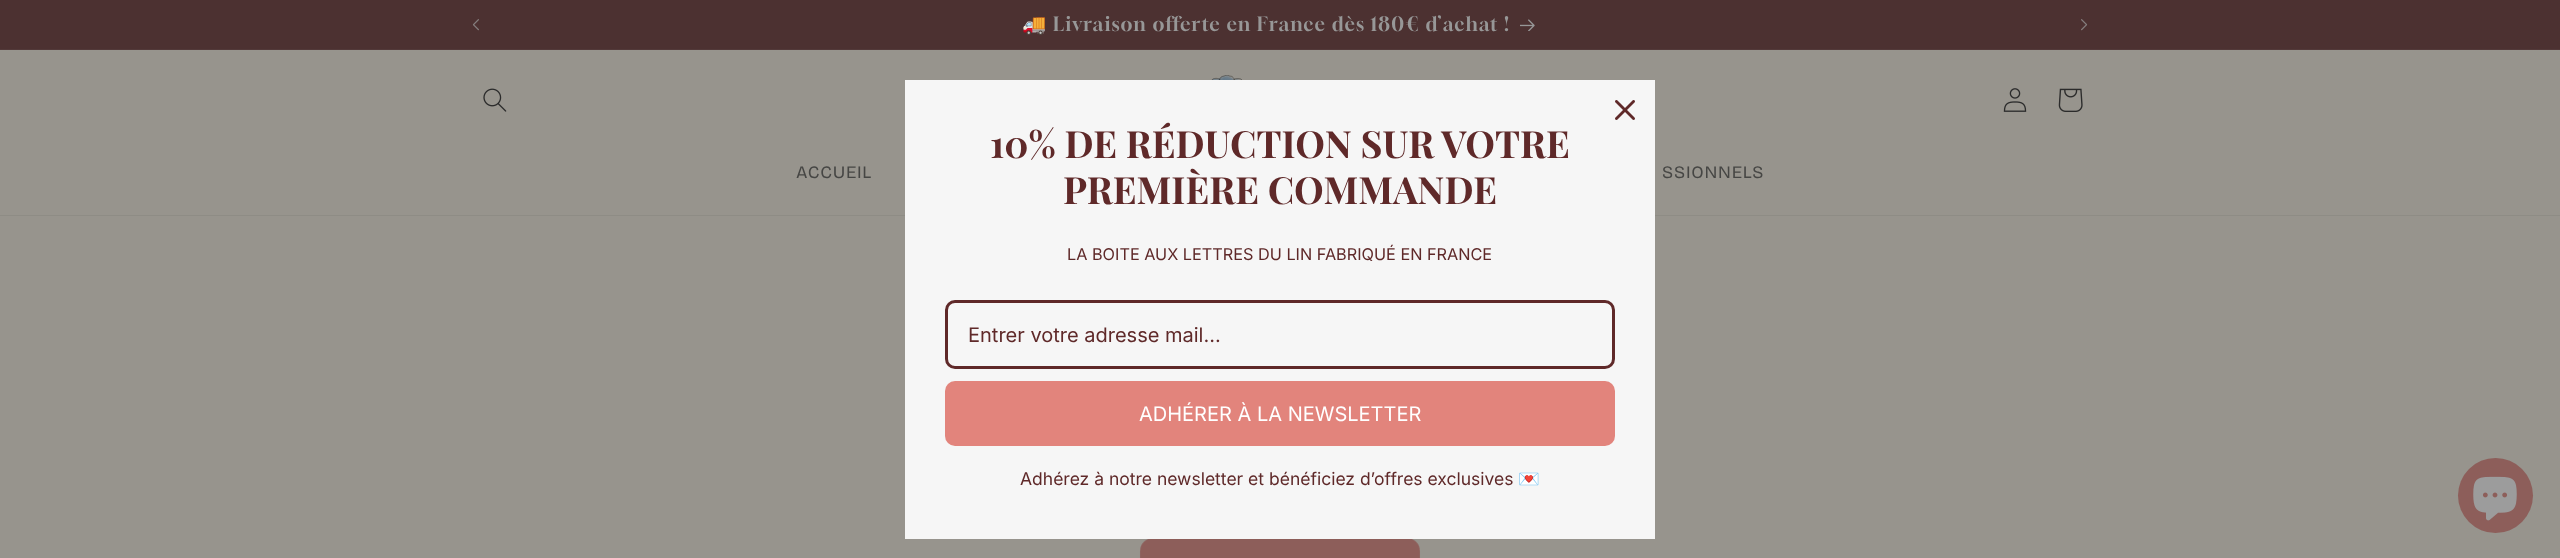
<?xml version="1.0" encoding="UTF-8"?>
<svg xmlns="http://www.w3.org/2000/svg" width="2560" height="558">
    <rect width="100%" height="100%" fill="#97948D"/>
    <rect x="0" y="0" width="2560" height="49" fill="#4C3131"/>
    <rect x="0" y="49" width="2560" height="1" fill="#523939"/>
    <image x="472" y="19" width="7" height="12" href="img_01.png"/>
    <text x="1022" y="31" font-family="Noto Color Emoji" font-size="19.5" letter-spacing="1.25" fill="#979797">🚚</text>
    <text x="1053" y="31" font-family="Gloock" font-size="19.5" letter-spacing="1.25" fill="#979797">Livraison offerte en France dès 180€ d’achat !</text>
    <image x="1520" y="19" width="15" height="12" href="img_02.png"/>
    <image x="2081" y="19" width="7" height="12" href="img_03.png"/>
    <rect x="0" y="215" width="2560" height="1" fill="#8E8C85"/>
    <rect x="1140" y="538" width="280" height="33" rx="13" fill="#8D5E5A"/>
    <rect x="1140.2" y="538.2" width="279.6" height="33.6" rx="12.8" fill="none" stroke="#97948D" stroke-opacity="0.45" stroke-width="0.4"/>
    <rect x="905" y="80" width="750" height="459" fill="#F6F6F6"/>
    <image x="1615" y="100" width="20" height="20" href="img_04.png"/>
    <text x="990" y="158" font-family="Playfair Display" font-size="37.5" font-weight="700" fill="#5F2929">10% DE RÉDUCTION SUR VOTRE</text>
    <text x="1063" y="204" font-family="Playfair Display" font-size="37.5" font-weight="700" fill="#5F2929">PREMIÈRE COMMANDE</text>
    <text x="1067" y="260" font-family="Inter" font-size="16.25" fill="#5F2929">LA BOITE AUX LETTRES DU LIN FABRIQUÉ EN FRANCE</text>
    <rect x="946.5" y="301.5" width="667" height="66" rx="8.5" fill="none" stroke="#5F2929" stroke-width="3"/>
    <text x="968" y="342" font-family="Inter" font-size="20" fill="#5F2929">Entrer votre adresse mail...</text>
    <rect x="945" y="381" width="670" height="65" rx="10" fill="#E2847C"/>
    <text x="1139" y="421" font-family="Inter" font-size="20" fill="#FFFFFF">ADHÉRER À LA NEWSLETTER</text>
    <text x="1020" y="485" font-family="Inter" font-size="17.5" fill="#5F2929">Adhérez à notre newsletter et bénéficiez d’offres exclusives</text>
    <text x="1518" y="485" font-family="Noto Color Emoji" font-size="17.5" fill="#5F2929">💌</text>
    <image x="1211" y="75" width="31" height="5" href="img_05.png"/>
    <image x="483" y="88" width="24" height="24" href="img_06.png"/>
    <image x="2003" y="88" width="24" height="24" href="img_07.png"/>
    <image x="2058" y="88" width="25" height="24" href="img_08.png"/>
    <text x="796" y="178" font-family="Bricolage Grotesque" font-size="17.5" letter-spacing="0.75" fill="#464644">ACCUEIL</text>
    <text x="1662" y="178" font-family="Bricolage Grotesque" font-size="17.5" letter-spacing="0.75" fill="#464644">SSIONNELS</text>
    <circle cx="2495.5" cy="495.5" r="37.5" fill="#8D5E5A"/>
    <image x="2473" y="476" width="44" height="45" href="img_09.png"/>
</svg>
